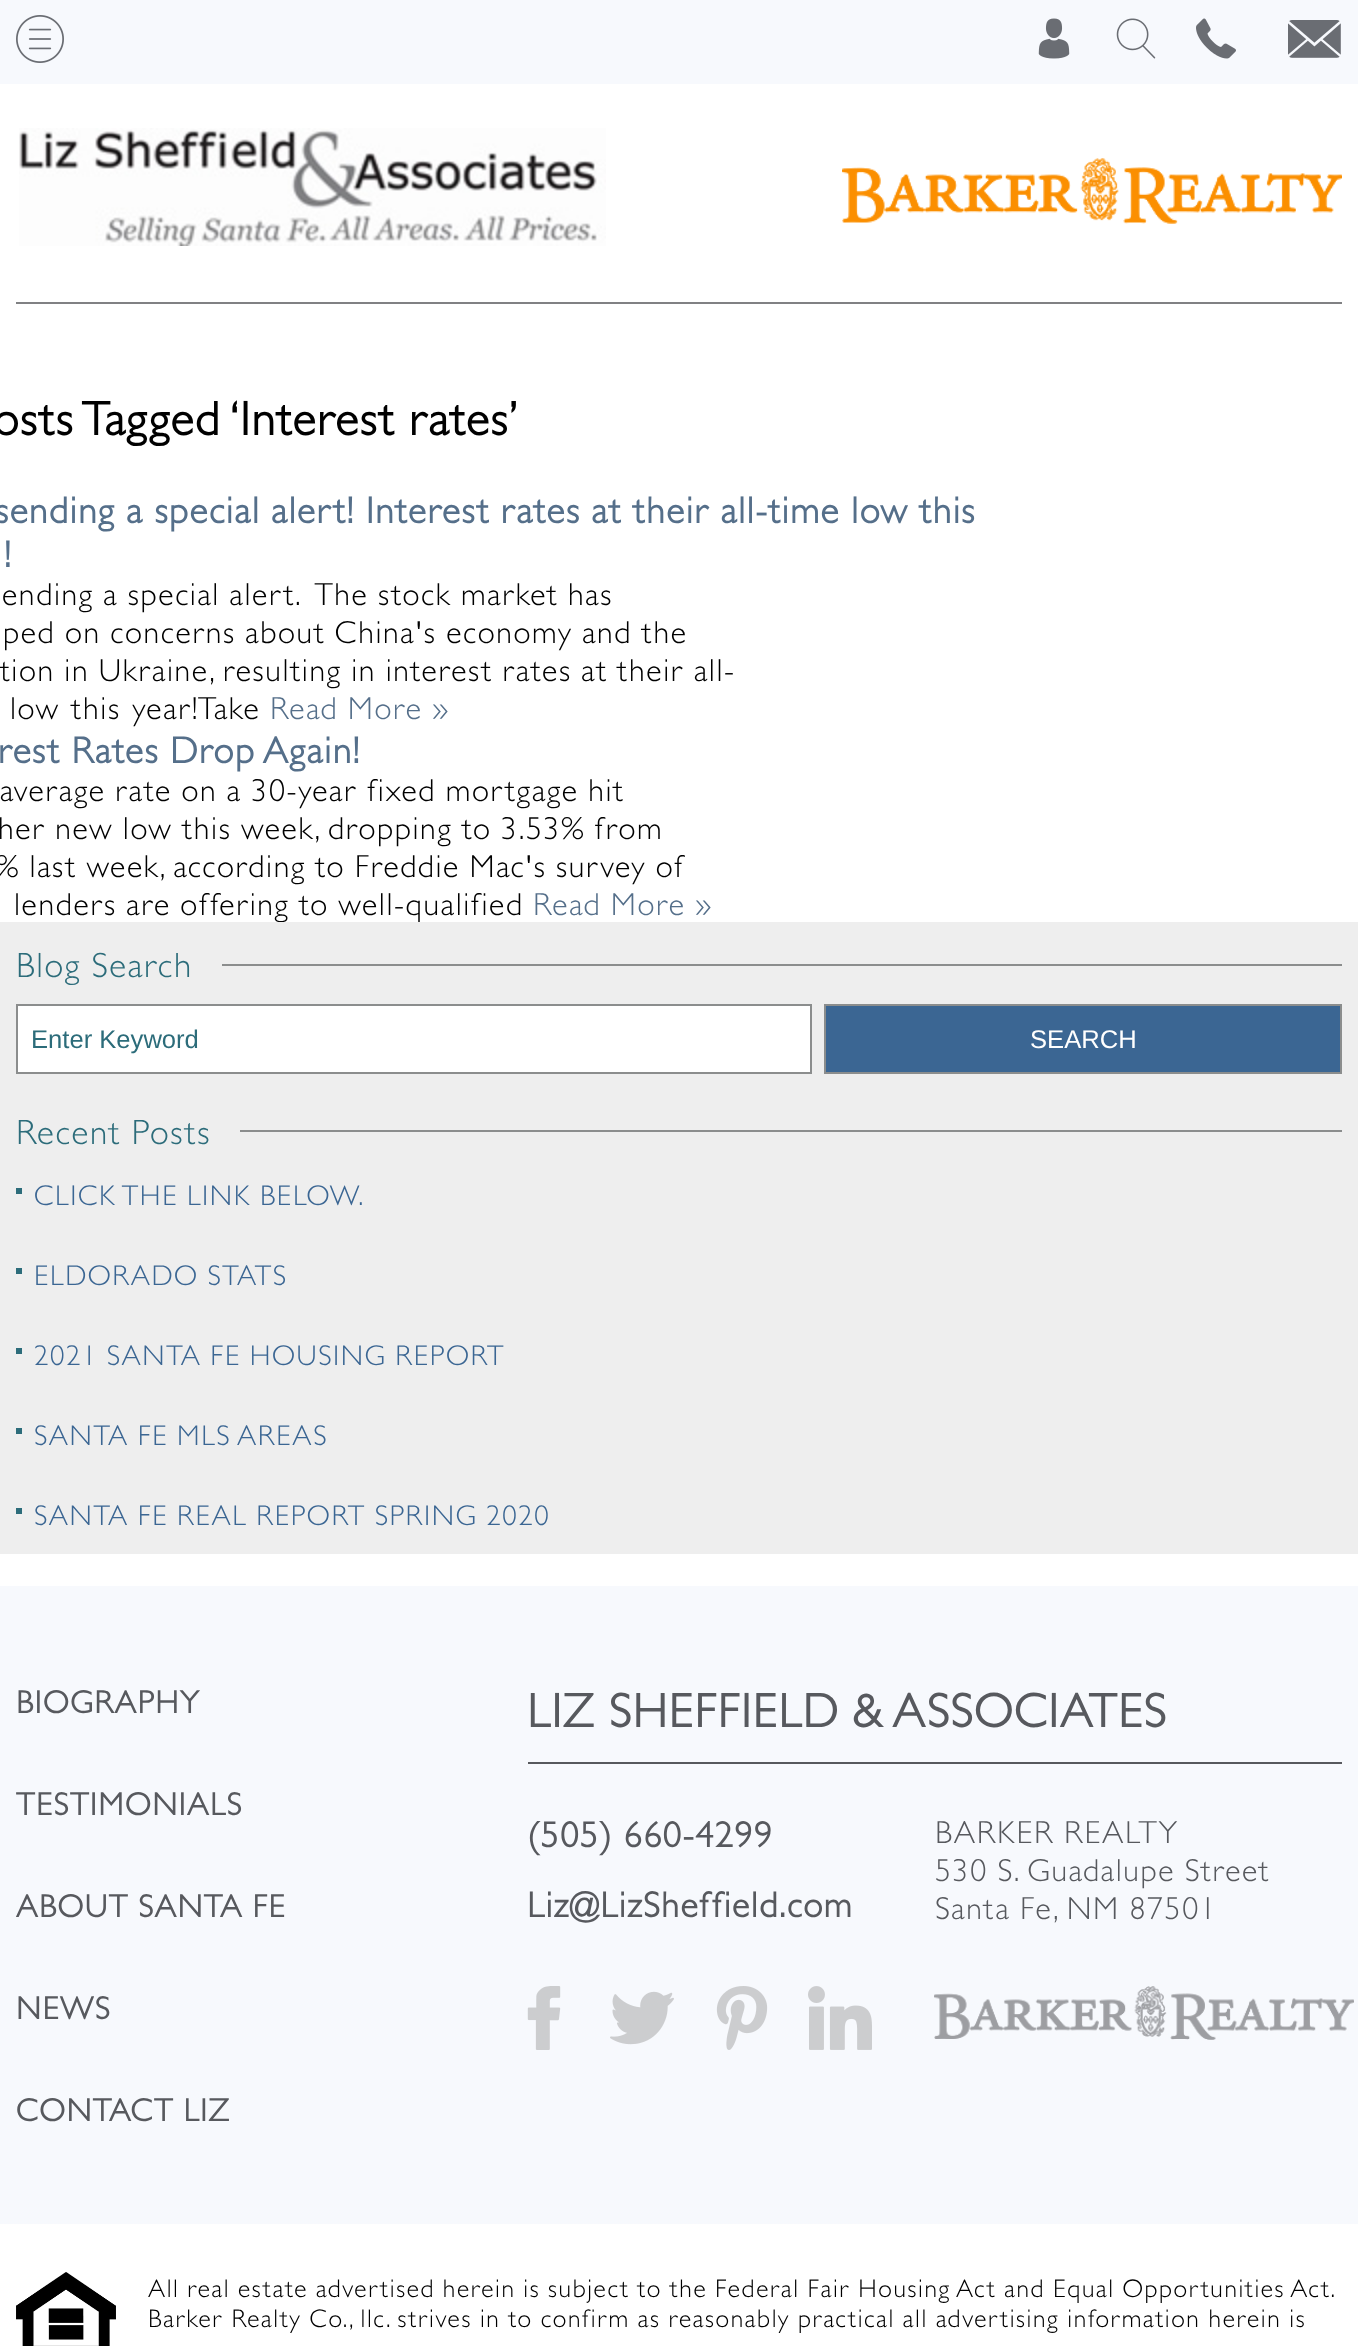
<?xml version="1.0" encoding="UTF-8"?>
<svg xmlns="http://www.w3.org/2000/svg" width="1358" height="2346">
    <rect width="100%" height="100%" fill="#FFFFFF"/>
    <rect x="0" y="0" width="1358" height="84" fill="#F7F9FD"/>
    <image x="16" y="15" width="48" height="48" href="img_01.png"/>
    <image x="1038" y="18" width="32" height="41" href="img_02.png"/>
    <image x="1116" y="18" width="40" height="41" href="img_03.png"/>
    <image x="1196" y="18" width="40" height="41" href="img_04.png"/>
    <image x="1288" y="20" width="53" height="38" href="img_05.png"/>
    <image x="19" y="128" width="587" height="118" href="img_06.png"/>
    <image x="842" y="158" width="500" height="66" href="img_07.png"/>
    <rect x="16" y="302" width="1326" height="2" fill="#808183"/>
    <text x="-7" y="435" font-family="Gill Sans" font-size="48" font-weight="700" letter-spacing="1.6" fill="#000000">osts Tagged ‘Interest rates’</text>
    <text x="-5" y="523" font-family="Gill Sans" font-size="37.45" font-weight="700" letter-spacing="1.6" fill="#556F8A">sending a special alert! Interest rates at their all-time low this</text>
    <text x="4" y="567" font-family="Gill Sans" font-size="37.45" font-weight="700" letter-spacing="1.6" fill="#556F8A">!</text>
    <text x="2" y="605" font-family="Gill Sans" font-size="32" font-weight="300" letter-spacing="1.6" fill="#000000" xml:space="preserve">ending a special alert.  The stock market has</text>
    <text x="3" y="643" font-family="Gill Sans" font-size="32" font-weight="300" letter-spacing="1.6" fill="#000000">ped on concerns about China's economy and the</text>
    <text x="0" y="681" font-family="Gill Sans" font-size="32" font-weight="300" letter-spacing="1.6" fill="#000000">tion in Ukraine, resulting in interest rates at their all-</text>
    <text x="10" y="719" word-spacing="2" font-family="Gill Sans" font-size="32" font-weight="300" letter-spacing="1.6" fill="#000000">low this year!</text>
    <text x="198" y="719" font-family="Gill Sans" font-size="32" font-weight="300" letter-spacing="1.6" fill="#000000">Take</text>
    <text x="270" y="719" font-family="Gill Sans" font-size="32" font-weight="300" letter-spacing="1.6" fill="#556F8A">Read More »</text>
    <text x="-2" y="763" font-family="Gill Sans" font-size="37.45" font-weight="700" letter-spacing="1.6" fill="#556F8A">rest Rates Drop Again!</text>
    <text x="0" y="801" font-family="Gill Sans" font-size="32" font-weight="300" letter-spacing="1.6" fill="#000000">average rate on a 30-year fixed mortgage hit</text>
    <text x="-2" y="839" font-family="Gill Sans" font-size="32" font-weight="300" letter-spacing="1.6" fill="#000000">her new low this week, dropping to 3.53% from</text>
    <text x="-4" y="877" font-family="Gill Sans" font-size="32" font-weight="300" letter-spacing="1.6" fill="#000000">% last week, according to Freddie Mac's survey of</text>
    <text x="14" y="915" font-family="Gill Sans" font-size="32" font-weight="300" letter-spacing="1.6" fill="#000000">lenders are offering to well-qualified</text>
    <text x="533" y="915" font-family="Gill Sans" font-size="32" font-weight="300" letter-spacing="1.6" fill="#556F8A">Read More »</text>
    <rect x="0" y="922" width="1358" height="632" fill="#EEEEEE"/>
    <text x="16" y="977" font-family="Gill Sans" font-size="35.25" font-weight="300" letter-spacing="1.6" fill="#2C6C7A">Blog Search</text>
    <rect x="222" y="964" width="1120" height="2" fill="#8B8D8D"/>
    <rect x="17" y="1005" width="794" height="68" fill="#FFFFFF" stroke="#8B8D8D" stroke-width="2"/>
    <text x="31" y="1048" font-family="Liberation Sans" font-size="25.6" fill="#2C6C7A">Enter Keyword</text>
    <rect x="825" y="1005" width="516" height="68" fill="#3B6693" stroke="#8B8D8D" stroke-width="2"/>
    <text x="1030" y="1048" font-family="Liberation Sans" font-size="25.6" fill="#FFFFFF">SEARCH</text>
    <text x="16" y="1144" font-family="Gill Sans" font-size="35.25" font-weight="300" letter-spacing="1.6" fill="#2C6C7A">Recent Posts</text>
    <rect x="240" y="1130" width="1102" height="2" fill="#8B8D8D"/>
    <rect x="16" y="1188" width="6" height="6" fill="#2C6C7A"/>
    <text x="34" y="1205" font-family="Gill Sans" font-size="28.75" font-weight="300" letter-spacing="1.6" fill="#3B6693">CLICK THE LINK BELOW.</text>
    <rect x="16" y="1268" width="6" height="6" fill="#2C6C7A"/>
    <text x="34" y="1285" font-family="Gill Sans" font-size="28.75" font-weight="300" letter-spacing="1.6" fill="#3B6693">ELDORADO STATS</text>
    <rect x="16" y="1348" width="6" height="6" fill="#2C6C7A"/>
    <text x="34" y="1365" font-family="Gill Sans" font-size="28.75" font-weight="300" letter-spacing="1.6" fill="#3B6693">2021 SANTA FE HOUSING REPORT</text>
    <rect x="16" y="1428" width="6" height="6" fill="#2C6C7A"/>
    <text x="34" y="1445" font-family="Gill Sans" font-size="28.75" font-weight="300" letter-spacing="1.6" fill="#3B6693">SANTA FE MLS AREAS</text>
    <rect x="16" y="1508" width="6" height="6" fill="#2C6C7A"/>
    <text x="34" y="1525" font-family="Gill Sans" font-size="28.75" font-weight="300" letter-spacing="1.6" fill="#3B6693">SANTA FE REAL REPORT SPRING 2020</text>
    <rect x="0" y="1586" width="1358" height="638" fill="#F7F9FD"/>
    <text x="16" y="1713" font-family="Gill Sans" font-size="32" font-weight="700" letter-spacing="1.6" fill="#57595E">BIOGRAPHY</text>
    <text x="16" y="1815" font-family="Gill Sans" font-size="32" font-weight="700" letter-spacing="1.6" fill="#57595E">TESTIMONIALS</text>
    <text x="16" y="1917" font-family="Gill Sans" font-size="32" font-weight="700" letter-spacing="1.6" fill="#57595E">ABOUT SANTA FE</text>
    <text x="16" y="2019" font-family="Gill Sans" font-size="32" font-weight="700" letter-spacing="1.6" fill="#57595E">NEWS</text>
    <text x="16" y="2121" font-family="Gill Sans" font-size="32" font-weight="700" letter-spacing="1.6" fill="#57595E">CONTACT LIZ</text>
    <rect x="528" y="1762" width="814" height="2" fill="#57595E"/>
    <text x="527" y="1727" font-family="Gill Sans" font-size="48" font-weight="700" letter-spacing="1.6" fill="#57595E">LIZ SHEFFIELD &amp; ASSOCIATES</text>
    <text font-family="Gill Sans" font-size="36" font-weight="700" letter-spacing="1.6" fill="#57595E">
        <tspan x="527" y="1847">(505) 660-4299</tspan>
        <tspan x="527" y="1917">Liz@LizSheffield.com</tspan>
    </text>
    <text font-family="Gill Sans" font-size="32" font-weight="300" letter-spacing="1.6" fill="#57595E">
        <tspan x="935" y="1843">BARKER REALTY</tspan>
        <tspan x="935" y="1881">530 S. Guadalupe Street</tspan>
        <tspan x="935" y="1919">Santa Fe, NM 87501</tspan>
    </text>
    <image x="527" y="1986" width="34" height="64" href="img_08.png"/>
    <image x="610" y="1991" width="64" height="54" href="img_09.png"/>
    <image x="716" y="1986" width="52" height="64" href="img_10.png"/>
    <image x="808" y="1986" width="64" height="64" href="img_11.png"/>
    <image x="934" y="1986" width="420" height="54" href="img_12.png"/>
    <image x="16" y="2272" width="100" height="74" href="img_13.png"/>
    <text font-family="Gill Sans" font-size="25.6" font-weight="300" letter-spacing="1.6" fill="#000000">
        <tspan x="148" y="2297" word-spacing="-0.2">All real estate advertised herein is subject to the Federal Fair Housing Act and Equal Opportunities Act.</tspan>
        <tspan x="148" y="2327">Barker Realty Co., llc. strives in to confirm as reasonably practical all advertising information herein is</tspan>
    </text>
</svg>
